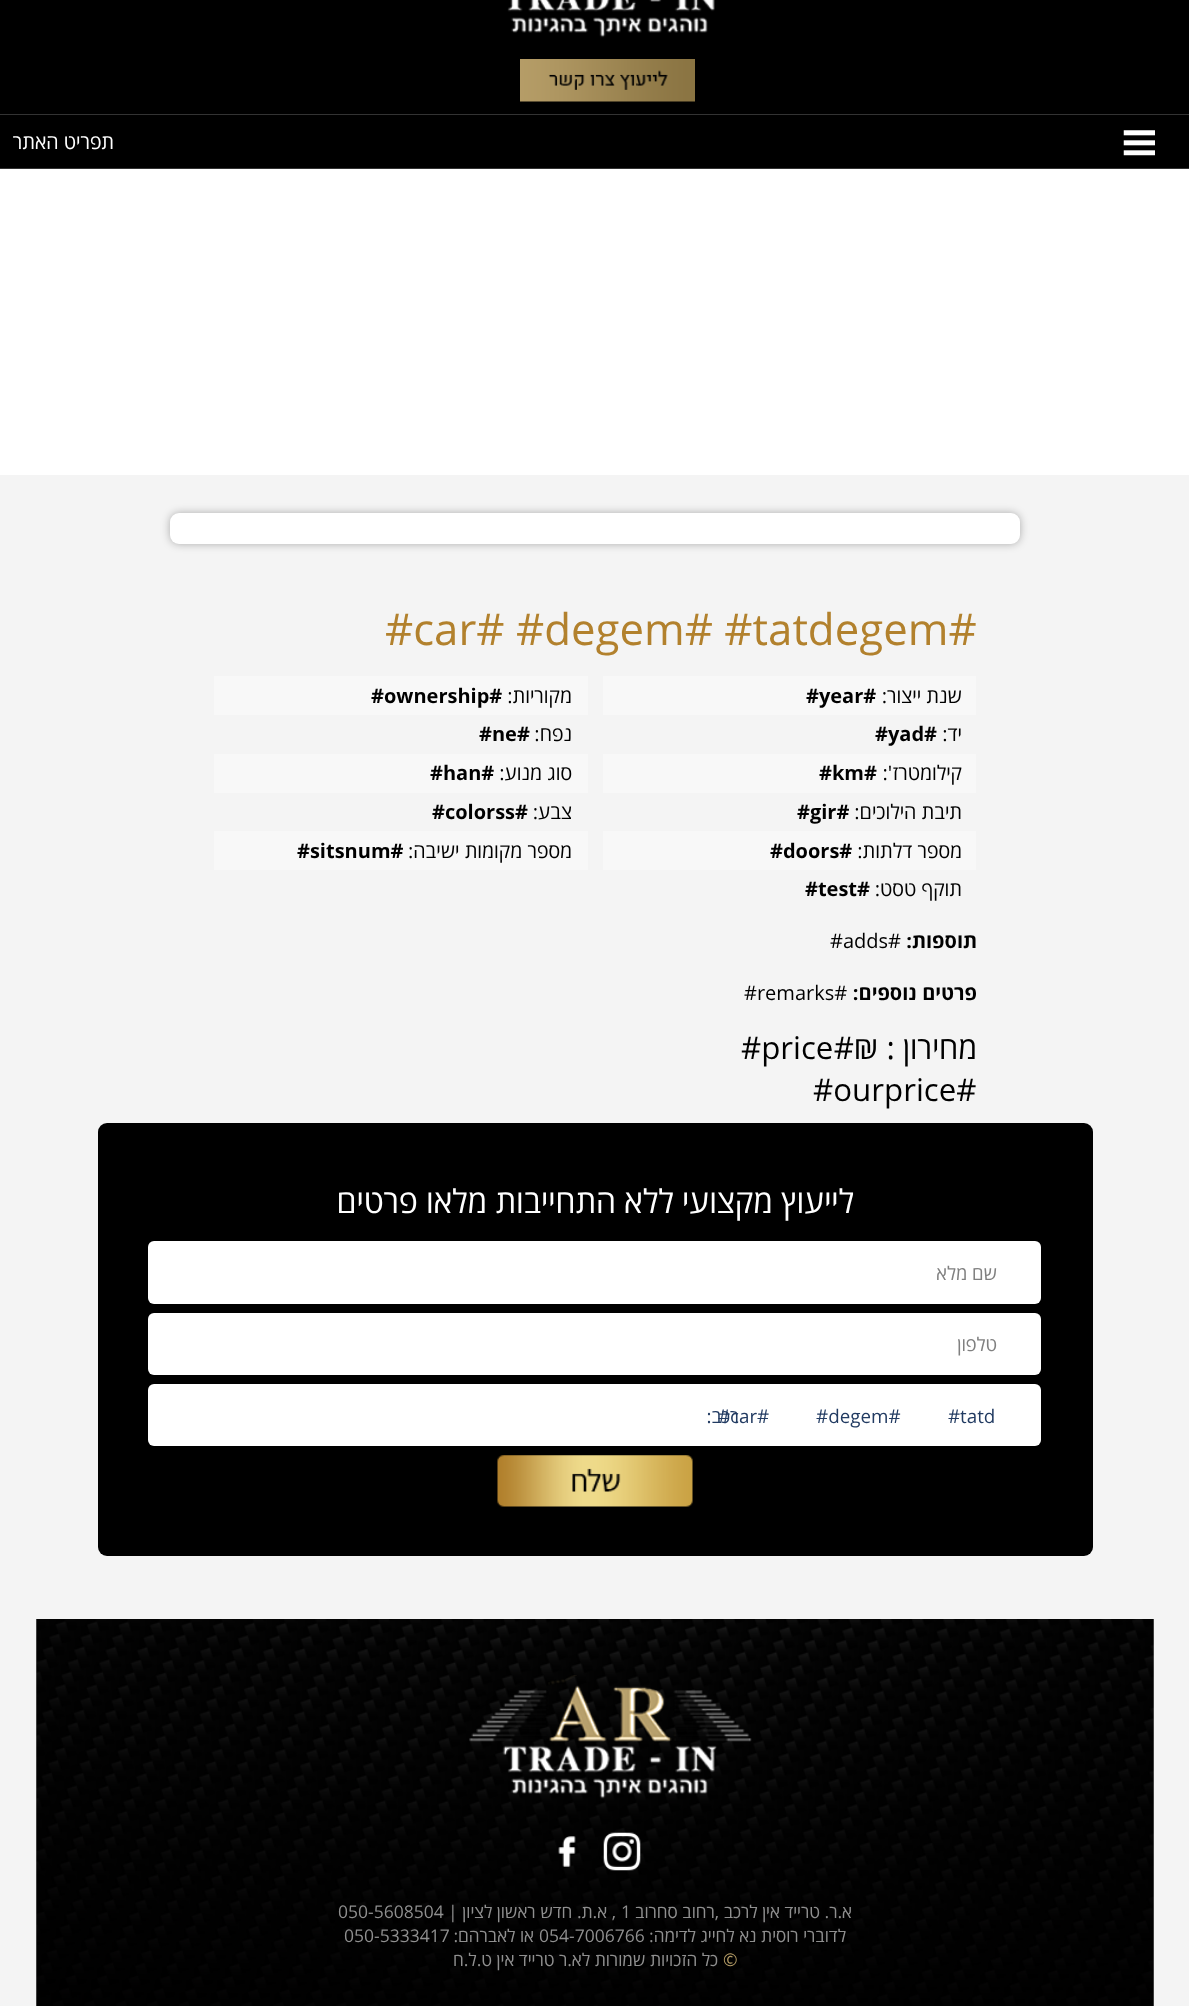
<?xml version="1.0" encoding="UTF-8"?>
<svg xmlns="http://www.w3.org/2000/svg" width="1189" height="2006">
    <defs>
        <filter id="blur1" x="-50%" y="-200%" width="200%" height="500%"><feGaussianBlur stdDeviation="4.5"/></filter>
    </defs>
    <rect width="100%" height="100%" fill="#FFFFFF"/>
    <rect x="0" y="0" width="1189" height="168" fill="#000000"/>
    <image x="507" y="0" width="208" height="38" href="img_01.png"/>
    <image x="520" y="59" width="175" height="43" href="img_02.png"/>
    <rect x="0" y="114" width="1189" height="1" fill="#333333"/>
    <rect x="0" y="168" width="1189" height="1" fill="#333333"/>
    <image x="1123" y="130" width="32" height="26" href="img_03.png"/>
    <text x="114" y="149" font-family="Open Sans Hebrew" font-size="20" direction="rtl" fill="#FFFFFF">תפריט האתר</text>
    <rect x="0" y="475" width="1189" height="1531" fill="#F4F4F4"/>
    <rect x="170" y="513" width="850" height="31" rx="9" fill="#000000" fill-opacity="0.3" filter="url(#blur1)"/>
    <rect x="170" y="513" width="850" height="31" rx="9" fill="#FFFFFF"/>
    <text x="385" y="645" font-family="Open Sans Hebrew" font-size="43.75" fill="#B2812D">#car# #degem# #tatdegem#</text>
    <rect x="603" y="676" width="373" height="39" fill="#F8F8F8"/>
    <text x="962" y="703" font-family="Open Sans Hebrew" font-size="20" direction="rtl" fill="#000000">שנת ייצור:</text>
    <text x="806" y="703" font-family="Open Sans Hebrew" font-size="20" font-weight="700" fill="#000000">#year#</text>
    <text x="962" y="741" font-family="Open Sans Hebrew" font-size="20" direction="rtl" fill="#000000">יד:</text>
    <text x="875" y="741" font-family="Open Sans Hebrew" font-size="20" font-weight="700" fill="#000000">#yad#</text>
    <rect x="603" y="754" width="373" height="39" fill="#F8F8F8"/>
    <text x="962" y="780" font-family="Open Sans Hebrew" font-size="20" direction="rtl" fill="#000000">קילומטרז':</text>
    <text x="819" y="780" font-family="Open Sans Hebrew" font-size="20" font-weight="700" fill="#000000">#km#</text>
    <text x="962" y="819" font-family="Open Sans Hebrew" font-size="20" direction="rtl" fill="#000000">תיבת הילוכים:</text>
    <text x="797" y="819" font-family="Open Sans Hebrew" font-size="20" font-weight="700" fill="#000000">#gir#</text>
    <rect x="603" y="831" width="373" height="39" fill="#F8F8F8"/>
    <text x="962" y="858" font-family="Open Sans Hebrew" font-size="20" direction="rtl" fill="#000000">מספר דלתות:</text>
    <text x="770" y="858" font-family="Open Sans Hebrew" font-size="20" font-weight="700" fill="#000000">#doors#</text>
    <text x="962" y="896" font-family="Open Sans Hebrew" font-size="20" direction="rtl" fill="#000000">תוקף טסט:</text>
    <text x="805" y="896" font-family="Open Sans Hebrew" font-size="20" font-weight="700" fill="#000000">#test#</text>
    <rect x="214" y="676" width="374" height="39" fill="#F8F8F8"/>
    <text x="572" y="703" font-family="Open Sans Hebrew" font-size="20" direction="rtl" fill="#000000">מקוריות:</text>
    <text x="371" y="703" font-family="Open Sans Hebrew" font-size="20" font-weight="700" fill="#000000">#ownership#</text>
    <text x="572" y="741" font-family="Open Sans Hebrew" font-size="20" direction="rtl" fill="#000000">נפח:</text>
    <text x="479" y="741" font-family="Open Sans Hebrew" font-size="20" font-weight="700" fill="#000000">#ne#</text>
    <rect x="214" y="754" width="374" height="39" fill="#F8F8F8"/>
    <text x="572" y="780" font-family="Open Sans Hebrew" font-size="20" direction="rtl" fill="#000000">סוג מנוע:</text>
    <text x="430" y="780" font-family="Open Sans Hebrew" font-size="20" font-weight="700" fill="#000000">#han#</text>
    <text x="572" y="819" font-family="Open Sans Hebrew" font-size="20" direction="rtl" fill="#000000">צבע:</text>
    <text x="432" y="819" font-family="Open Sans Hebrew" font-size="20" font-weight="700" fill="#000000">#colorss#</text>
    <rect x="214" y="831" width="374" height="39" fill="#F8F8F8"/>
    <text x="572" y="858" font-family="Open Sans Hebrew" font-size="20" direction="rtl" fill="#000000">מספר מקומות ישיבה:</text>
    <text x="297" y="858" font-family="Open Sans Hebrew" font-size="20" font-weight="700" fill="#000000">#sitsnum#</text>
    <text x="977" y="948" font-family="Open Sans Hebrew" font-size="20" font-weight="700" direction="rtl" fill="#000000">תוספות:</text>
    <text x="830" y="948" font-family="Open Sans Hebrew" font-size="20" fill="#000000">#adds#</text>
    <text x="977" y="1000" font-family="Open Sans Hebrew" font-size="20" font-weight="700" direction="rtl" fill="#000000">פרטים נוספים:</text>
    <text x="744" y="1000" font-family="Open Sans Hebrew" font-size="20" fill="#000000">#remarks#</text>
    <text x="977" y="1059" font-family="Open Sans Hebrew" font-size="31.25" direction="rtl" fill="#000000">מחירון : ₪#</text>
    <text x="741" y="1059" font-family="Open Sans Hebrew" font-size="31.25" fill="#000000">#price</text>
    <text x="813" y="1101" font-family="Open Sans Hebrew" font-size="31.25" fill="#000000">#ourprice#</text>
    <rect x="98" y="1123" width="995" height="433" rx="9" fill="#000000"/>
    <text x="854" y="1213" font-family="Open Sans Hebrew" font-size="32.5" direction="rtl" fill="#FFFFFF">לייעוץ מקצועי ללא התחייבות מלאו פרטים</text>
    <rect x="148" y="1241" width="893" height="63" rx="6" fill="#FFFFFF"/>
    <text x="997" y="1280" font-family="Open Sans Hebrew" font-size="18.75" direction="rtl" fill="#808080">שם מלא</text>
    <rect x="148" y="1313" width="893" height="62" rx="6" fill="#FFFFFF"/>
    <text x="997" y="1351" font-family="Open Sans Hebrew" font-size="18.75" direction="rtl" fill="#808080">טלפון</text>
    <rect x="148" y="1384" width="893" height="62" rx="6" fill="#FFFFFF"/>
    <text x="948" y="1423" font-family="Open Sans Hebrew" font-size="18.75" fill="#223B62">#tatd</text>
    <text x="739" y="1423" font-family="Open Sans Hebrew" font-size="18.75" direction="rtl" fill="#223B62">רכב:</text>
    <text x="718" y="1423" word-spacing="42" font-family="Open Sans Hebrew" font-size="18.75" fill="#223B62">#car# #degem#</text>
    <image x="497" y="1455" width="196" height="52" href="img_04.png"/>
    <image x="36" y="1619" width="1118" height="387" href="img_05.png"/>
    <image x="469" y="1675" width="283" height="124" href="img_06.png"/>
    <image x="603" y="1832" width="38" height="39" href="img_07.png"/>
    <image x="558" y="1836" width="18" height="31" href="img_08.png"/>
    <text x="852" y="1918" font-family="Open Sans Hebrew" font-size="17.5" direction="rtl" fill="#8F8F8F">א.ר. טרייד אין לרכב ,רחוב סחרוב</text>
    <text x="621" y="1918" font-family="Open Sans Hebrew" font-size="17.5" fill="#8F8F8F">1</text>
    <text x="616" y="1918" font-family="Open Sans Hebrew" font-size="17.5" direction="rtl" fill="#8F8F8F">, א.ת. חדש ראשון לציון |</text>
    <text x="338" y="1918" font-family="Open Sans Hebrew" font-size="17.5" fill="#8F8F8F">050-5608504</text>
    <text x="846" y="1942" font-family="Open Sans Hebrew" font-size="17.5" direction="rtl" fill="#8F8F8F">לדוברי רוסית נא לחייג לדימה:</text>
    <text x="539" y="1942" font-family="Open Sans Hebrew" font-size="17.5" fill="#8F8F8F">054-7006766</text>
    <text x="534" y="1942" font-family="Open Sans Hebrew" font-size="17.5" direction="rtl" fill="#8F8F8F">או לאברהם:</text>
    <text x="344" y="1942" font-family="Open Sans Hebrew" font-size="17.5" fill="#8F8F8F">050-5333417</text>
    <text x="723" y="1966" font-family="Open Sans Hebrew" font-size="17.5" fill="#B49C66">©</text>
    <text x="718" y="1966" font-family="Open Sans Hebrew" font-size="17.5" direction="rtl" fill="#8F8F8F">כל הזכויות שמורות לא.ר טרייד אין ט.ל.ח</text>
</svg>
